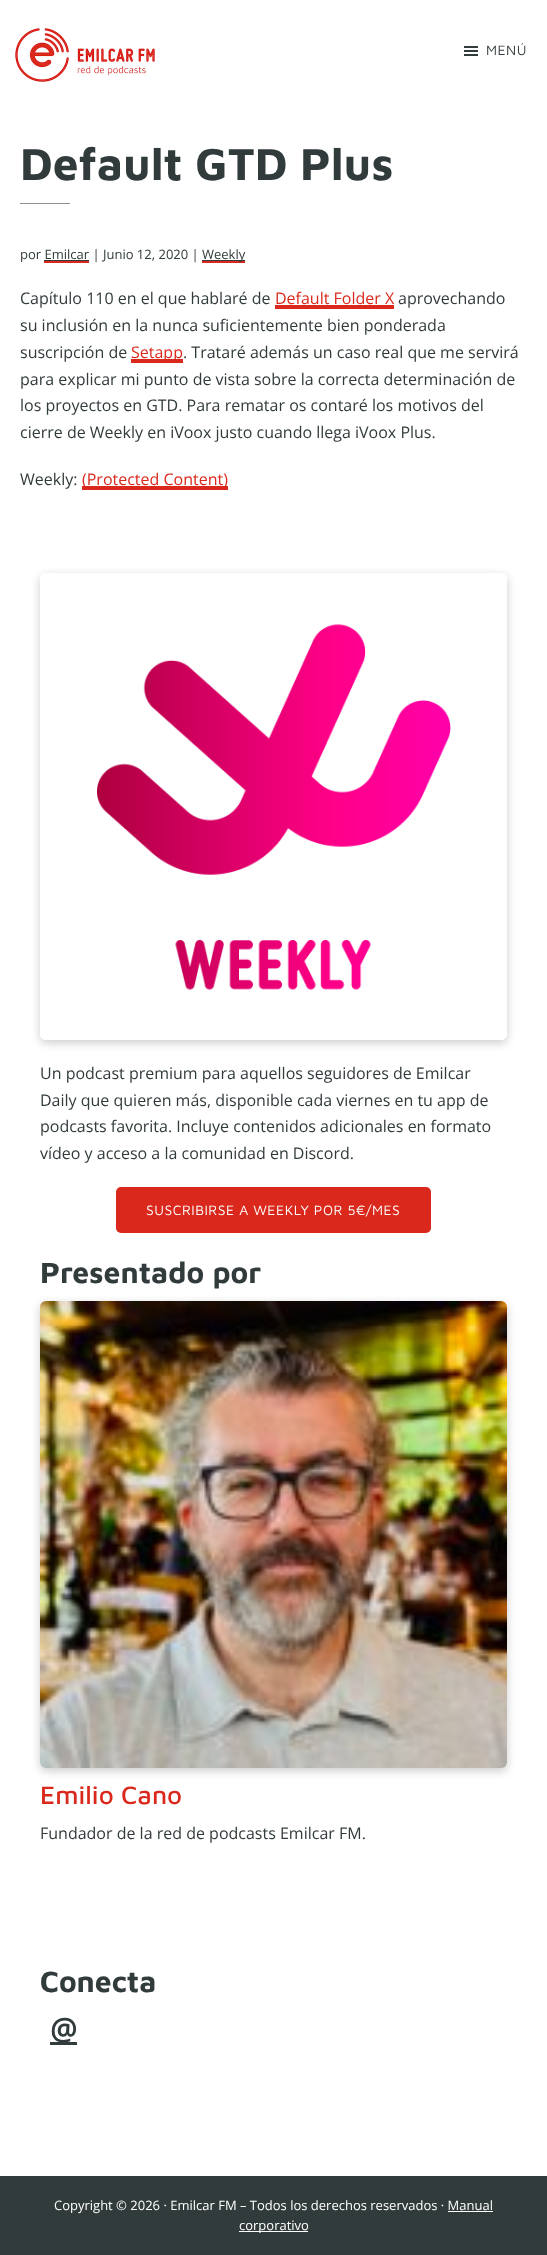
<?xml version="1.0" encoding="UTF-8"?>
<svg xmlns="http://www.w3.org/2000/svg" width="547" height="2255">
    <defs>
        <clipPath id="clip1"><path d="M 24 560 H 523 V 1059 H 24 Z M 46 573 H 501 C 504.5 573 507 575.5 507 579 V 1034 C 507 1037.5 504.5 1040 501 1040 H 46 C 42.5 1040 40 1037.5 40 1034 V 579 C 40 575.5 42.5 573 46 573 Z" clip-rule="evenodd"/></clipPath>
        <filter id="blur1" x="-50%" y="-200%" width="200%" height="500%"><feGaussianBlur stdDeviation="5"/></filter>
    </defs>
    <rect width="100%" height="100%" fill="#FFFFFF"/>
    <image x="15" y="28" width="140" height="54" href="img_01.png"/>
    <image x="464" y="46" width="14" height="10" href="img_02.png"/>
    <text x="486" y="55" font-family="Maven Pro" font-size="14" letter-spacing="0.5" fill="#323B3C">MENÚ</text>
    <text x="20" y="180" font-family="Maven Pro" font-size="46" font-weight="700" fill="#323B3C">Default GTD Plus</text>
    <rect x="20" y="203" width="50" height="1" fill="#938E8E"/>
    <text x="20" y="259" font-family="Open Sans" font-size="13" fill="#323B3C">por Emilcar | Junio 12, 2020 |</text>
    <rect x="202" y="261" width="43" height="2" fill="#DA291C"/>
    <rect x="202" y="260" width="43" height="1" fill="#323B3C"/>
    <text x="202" y="259" font-family="Open Sans" font-size="13" fill="#323B3C">Weekly</text>
    <rect x="44" y="260" width="45" height="1" fill="#323B3C"/>
    <rect x="44" y="261" width="45" height="2" fill="#DA291C"/>
    <text x="20" y="304" font-family="Open Sans" font-size="16" fill="#323B3C">Capítulo 110 en el que hablaré de</text>
    <text x="275" y="304" font-family="Open Sans" font-size="16" fill="#DA291C">Default Folder X</text>
    <rect x="275" y="305" width="119" height="4" fill="#DA291C"/>
    <text x="398" y="304" font-family="Open Sans" font-size="16" fill="#323B3C">aprovechando</text>
    <text font-family="Open Sans" font-size="16" fill="#323B3C">
        <tspan x="20" y="331">su inclusión en la nunca suficientemente bien ponderada</tspan>
        <tspan x="20" y="358">suscripción de</tspan>
    </text>
    <rect x="131" y="359" width="52" height="4" fill="#DA291C"/>
    <text x="131" y="358" font-family="Open Sans" font-size="16" fill="#DA291C">Setapp</text>
    <text x="183" y="358" font-family="Open Sans" font-size="16" fill="#323B3C">. Trataré además un caso real que me servirá</text>
    <text font-family="Open Sans" font-size="16" fill="#323B3C">
        <tspan x="20" y="385">para explicar mi punto de vista sobre la correcta determinación de</tspan>
        <tspan x="20" y="411">los proyectos en GTD. Para rematar os contaré los motivos del</tspan>
        <tspan x="20" y="438">cierre de Weekly en iVoox justo cuando llega iVoox Plus.</tspan>
    </text>
    <text x="20" y="485" font-family="Open Sans" font-size="16" fill="#323B3C">Weekly:</text>
    <rect x="82" y="486" width="146" height="4" fill="#DA291C"/>
    <text x="82" y="485" font-family="Open Sans" font-size="16" fill="#DA291C">(Protected Content)</text>
    <g clip-path="url(#clip1)">
        <rect x="40" y="576" width="467" height="467" rx="6" fill="#000000" fill-opacity="0.2" filter="url(#blur1)"/>
    </g>
    <image x="40" y="624" width="467" height="416" href="img_03.png"/>
    <text font-family="Open Sans" font-size="16" fill="#323B3C">
        <tspan x="40" y="1079">Un podcast premium para aquellos seguidores de Emilcar</tspan>
        <tspan x="40" y="1106">Daily que quieren más, disponible cada viernes en tu app de</tspan>
        <tspan x="40" y="1132">podcasts favorita. Incluye contenidos adicionales en formato</tspan>
        <tspan x="40" y="1159">vídeo y acceso a la comunidad en Discord.</tspan>
    </text>
    <rect x="116" y="1187" width="315" height="46" rx="5" fill="#DA291C"/>
    <text x="146" y="1215" font-family="Maven Pro" font-size="14" letter-spacing="0.5" fill="#FFFFFF">SUSCRIBIRSE A WEEKLY POR 5€/MES</text>
    <text x="40" y="1283" font-family="Maven Pro" font-size="30" font-weight="700" fill="#323B3C">Presentado por</text>
    <rect x="40" y="1304" width="467" height="467" rx="6" fill="#000000" fill-opacity="0.2" filter="url(#blur1)"/>
    <image x="40" y="1301" width="467" height="467" href="img_04.png"/>
    <text x="40" y="1804" font-family="Maven Pro" font-size="26" font-weight="500" fill="#DA291C">Emilio Cano</text>
    <text x="40" y="1839" font-family="Open Sans" font-size="16" fill="#323B3C">Fundador de la red de podcasts Emilcar FM.</text>
    <text x="40" y="1992" font-family="Maven Pro" font-size="30" font-weight="700" fill="#323B3C">Conecta</text>
    <rect x="50" y="2042" width="27" height="3" fill="#323B3C"/>
    <text x="50" y="2040" font-family="Open Sans" font-size="30" font-weight="700" fill="#323B3C">@</text>
    <rect x="0" y="2176" width="547" height="79" fill="#323B3C"/>
    <text x="54" y="2210" font-family="Open Sans" font-size="13" fill="#FFFFFF">Copyright © 2026 · Emilcar FM – Todos los derechos reservados · Manual</text>
    <rect x="239" y="2231" width="69" height="1" fill="#FFFFFF"/>
    <text x="239" y="2230" font-family="Open Sans" font-size="13" fill="#FFFFFF">corporativo</text>
    <rect x="448" y="2211" width="45" height="1" fill="#FFFFFF"/>
</svg>
